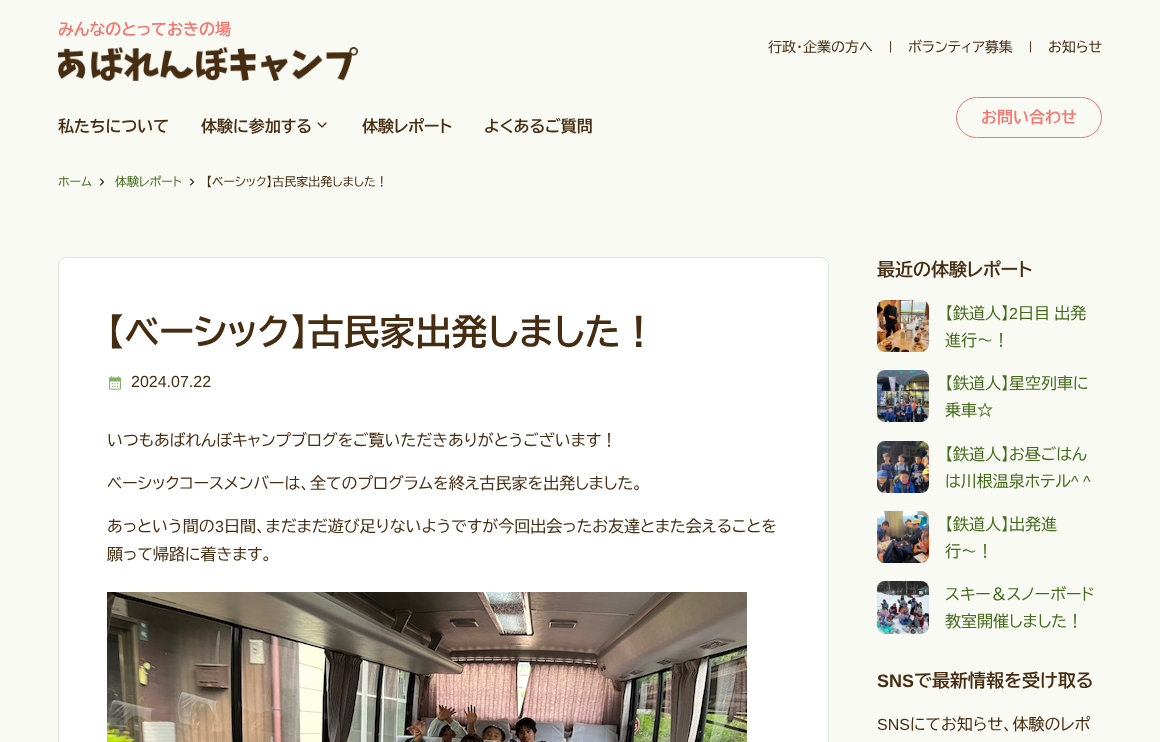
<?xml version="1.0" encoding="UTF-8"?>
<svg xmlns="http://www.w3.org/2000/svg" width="1160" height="742">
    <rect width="100%" height="100%" fill="#F8FAF3"/>
    <text x="58" y="35" font-family="BIZ UDPGothic" font-size="16" font-weight="700" fill="#F67670">みんなのとっておきの場</text>
    <image x="58" y="47" width="300" height="34" href="img_01.png"/>
    <text x="768" y="52" font-family="BIZ UDPGothic" font-size="14" fill="#462C11">行政・企業の方へ</text>
    <text x="889" y="50" font-family="Liberation Sans" font-size="12" fill="#462C11">|</text>
    <text x="908" y="52" font-family="BIZ UDPGothic" font-size="14" fill="#462C11">ボランティア募集</text>
    <text x="1029" y="50" font-family="Liberation Sans" font-size="12" fill="#462C11">|</text>
    <text x="1048" y="52" font-family="BIZ UDPGothic" font-size="14" fill="#462C11">お知らせ</text>
    <text x="58" y="132" font-family="BIZ UDPGothic" font-size="16" font-weight="700" fill="#462C11">私たちについて</text>
    <image x="317" y="122" width="10" height="6" href="img_02.png"/>
    <text x="201" y="132" font-family="BIZ UDPGothic" font-size="16" font-weight="700" fill="#462C11">体験に参加する</text>
    <text x="362" y="132" font-family="BIZ UDPGothic" font-size="16" font-weight="700" fill="#462C11">体験レポート</text>
    <text x="484" y="132" font-family="BIZ UDPGothic" font-size="16" font-weight="700" fill="#462C11">よくあるご質問</text>
    <rect x="956.5" y="97.5" width="145" height="40" rx="20" fill="none" stroke="#F67670"/>
    <text x="981" y="123" font-family="BIZ UDPGothic" font-size="16" font-weight="700" fill="#F67670">お問い合わせ</text>
    <text x="58" y="186" font-family="BIZ UDPGothic" font-size="12" fill="#446A1B">ホーム</text>
    <image x="100" y="178" width="4" height="8" href="img_03.png"/>
    <text x="115" y="186" font-family="BIZ UDPGothic" font-size="12" fill="#446A1B">体験レポート</text>
    <image x="190" y="178" width="4" height="8" href="img_03.png"/>
    <text x="206" y="186" font-family="BIZ UDPGothic" font-size="12" fill="#462C11">【ベーシック】古民家出発しました！</text>
    <rect x="58.5" y="257.5" width="770" height="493" rx="7.5" fill="#FFFFFF" stroke="#DAE6D5"/>
    <text x="107" y="345" font-family="BIZ UDPGothic" font-size="36" font-weight="700" fill="#462C11">【ベーシック】古民家出発しました！</text>
    <image x="109" y="376" width="12" height="14" href="img_04.png"/>
    <text x="131" y="387" font-family="Liberation Sans" font-size="16" fill="#462C11">2024.07.22</text>
    <text x="107" y="446" font-family="BIZ UDPGothic" font-size="16" fill="#462C11">いつもあばれんぼキャンプブログをご覧いただきありがとうございます！</text>
    <text x="107" y="489" font-family="BIZ UDPGothic" font-size="16" fill="#462C11">ベーシックコースメンバーは、全てのプログラムを終え古民家を出発しました。</text>
    <text x="107" y="532" font-family="BIZ UDPGothic" font-size="16" fill="#462C11">あっという間の</text>
    <text x="215" y="532" font-family="Liberation Sans" font-size="16" fill="#462C11">3</text>
    <text x="224" y="532" font-family="BIZ UDPGothic" font-size="16" fill="#462C11">日間、まだまだ遊び足りないようですが今回出会ったお友達とまた会えることを</text>
    <text x="107" y="560" font-family="BIZ UDPGothic" font-size="16" fill="#462C11">願って帰路に着きます。</text>
    <image x="107" y="592" width="640" height="150" href="img_05.png"/>
    <text x="877" y="276" font-family="BIZ UDPGothic" font-size="18" font-weight="700" fill="#462C11">最近の体験レポート</text>
    <image x="877" y="300" width="52" height="52" href="img_06.png"/>
    <text x="945" y="319" font-family="BIZ UDPGothic" font-size="16" fill="#446A1B">【鉄道人】</text>
    <text x="1009" y="319" font-family="Liberation Sans" font-size="16" fill="#446A1B">2</text>
    <text x="1018" y="319" word-spacing="-1" font-family="BIZ UDPGothic" font-size="16" fill="#446A1B">日目 出発</text>
    <text x="945" y="346" font-family="BIZ UDPGothic" font-size="16" fill="#446A1B">進行〜！</text>
    <image x="877" y="370" width="52" height="52" href="img_07.png"/>
    <text font-family="BIZ UDPGothic" font-size="16" fill="#446A1B">
        <tspan x="945" y="389">【鉄道人】星空列車に</tspan>
        <tspan x="945" y="416">乗車☆</tspan>
    </text>
    <image x="877" y="441" width="52" height="52" href="img_08.png"/>
    <text font-family="BIZ UDPGothic" font-size="16" fill="#446A1B">
        <tspan x="945" y="460">【鉄道人】お昼ごはん</tspan>
        <tspan x="945" y="487">は川根温泉ホテル</tspan>
    </text>
    <text x="1071" y="487" font-family="Liberation Sans" font-size="16" fill="#446A1B">^ ^</text>
    <image x="877" y="511" width="52" height="52" href="img_09.png"/>
    <text font-family="BIZ UDPGothic" font-size="16" fill="#446A1B">
        <tspan x="945" y="530">【鉄道人】出発進</tspan>
        <tspan x="945" y="557">行〜！</tspan>
    </text>
    <image x="877" y="581" width="52" height="53" href="img_10.png"/>
    <text font-family="BIZ UDPGothic" font-size="16" fill="#446A1B">
        <tspan x="945" y="600">スキー＆スノーボード</tspan>
        <tspan x="945" y="627">教室開催しました！</tspan>
    </text>
    <text x="877" y="687" font-family="Liberation Sans" font-size="18" font-weight="700" fill="#462C11">SNS</text>
    <text x="914" y="687" font-family="BIZ UDPGothic" font-size="18" font-weight="700" fill="#462C11">で最新情報を受け取る</text>
    <text x="877" y="730" font-family="Liberation Sans" font-size="16" fill="#462C11">SNS</text>
    <text x="910" y="730" font-family="BIZ UDPGothic" font-size="16" fill="#462C11">にてお知らせ、体験のレポ</text>
</svg>
